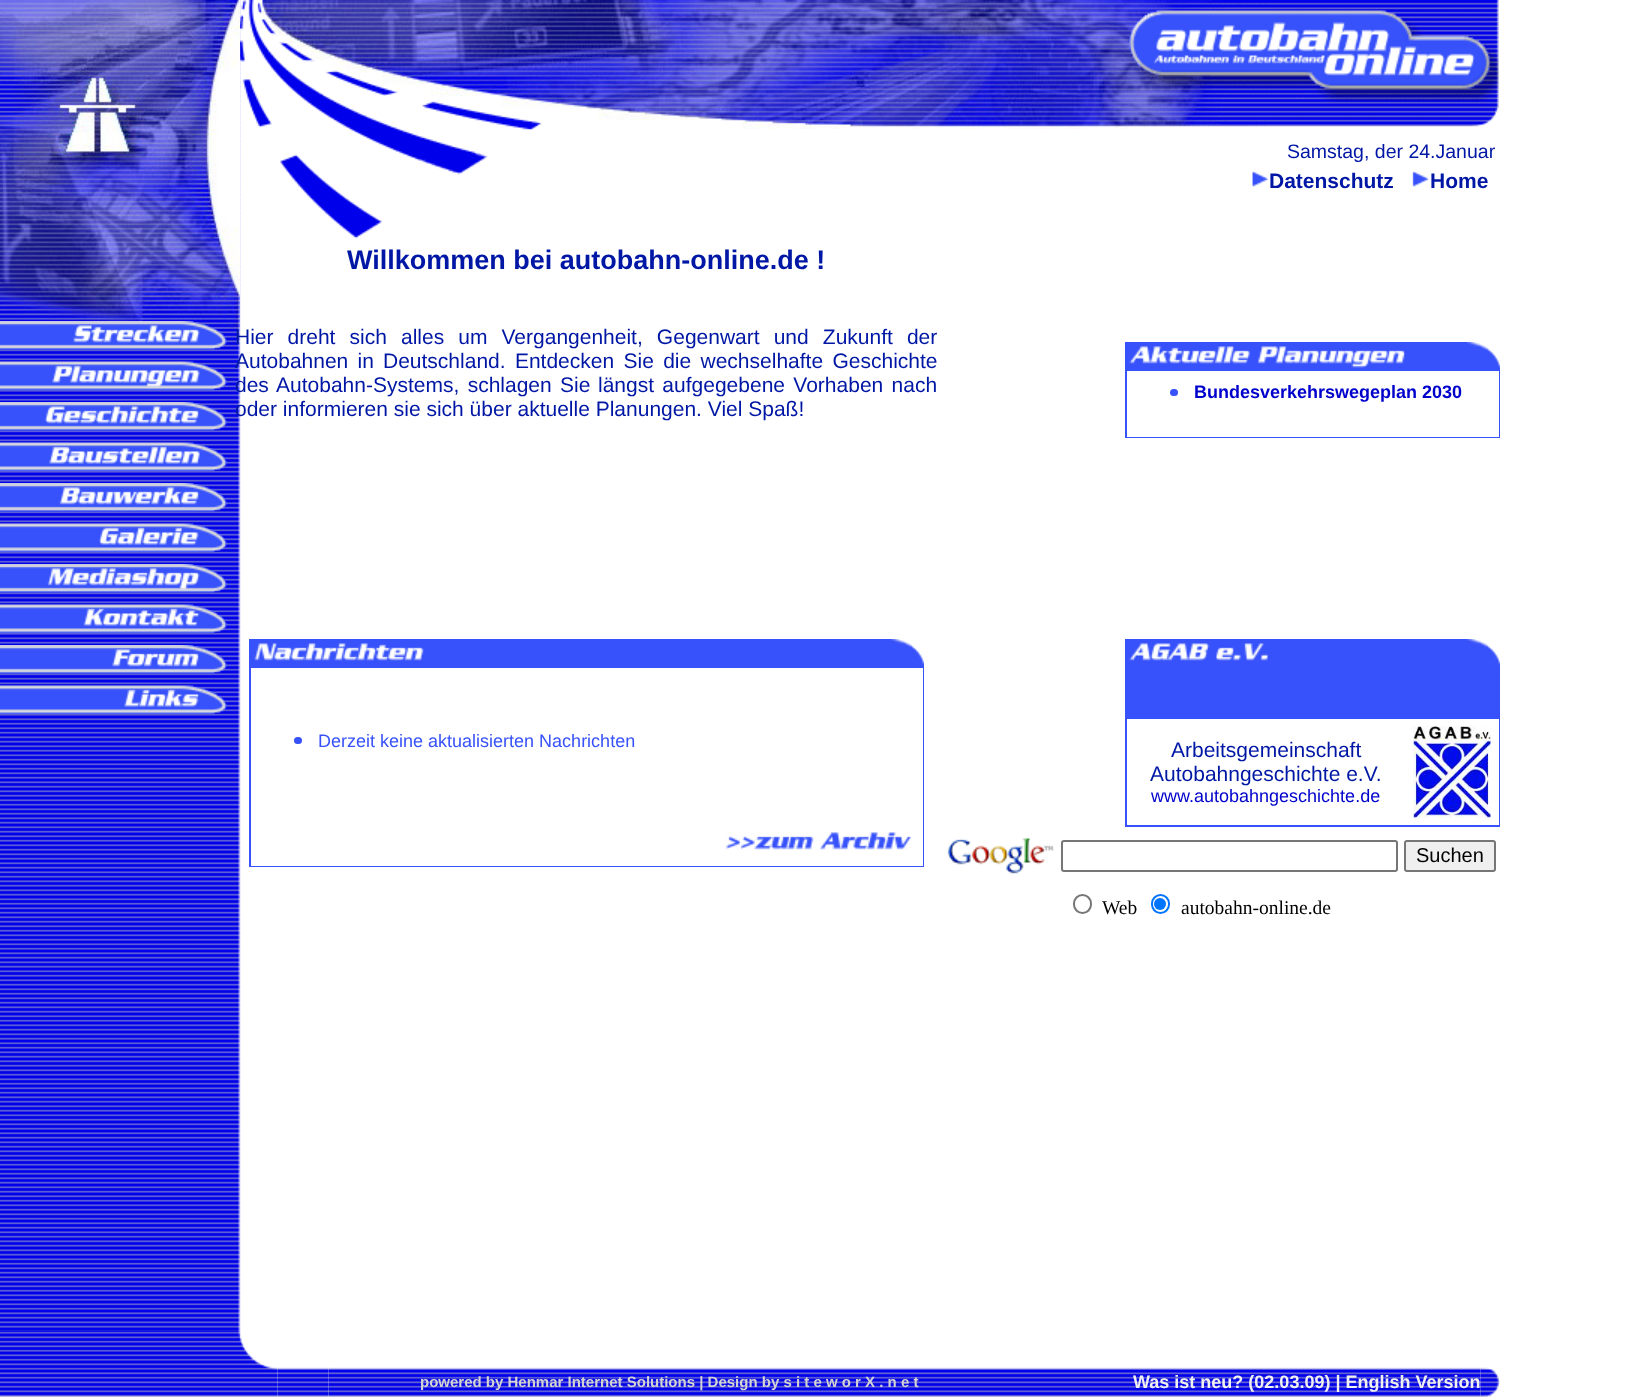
<?xml version="1.0" encoding="UTF-8"?>
<svg xmlns="http://www.w3.org/2000/svg" width="1635" height="1397">
    <rect width="100%" height="100%" fill="#FFFFFF"/>
    <image x="0" y="0" width="241" height="1331" href="img_01.png"/>
    <text x="235" y="344" word-spacing="8.25" font-family="Liberation Sans" font-size="21" fill="#0016A5">Hier dreht sich alles um Vergangenheit, Gegenwart und Zukunft der</text>
    <image x="0" y="0" width="240" height="329" href="img_02.png"/>
    <image x="262" y="0" width="866" height="129" href="img_04.png"/>
    <image x="240" y="0" width="302" height="239" href="img_03.png"/>
    <image x="1128" y="0" width="371" height="127" href="img_05.png"/>
    <image x="0" y="321" width="227" height="29" href="img_06.png"/>
    <image x="0" y="361" width="227" height="29" href="img_07.png"/>
    <image x="0" y="402" width="227" height="29" href="img_08.png"/>
    <image x="0" y="442" width="227" height="29" href="img_09.png"/>
    <image x="0" y="483" width="227" height="29" href="img_10.png"/>
    <image x="0" y="523" width="227" height="29" href="img_11.png"/>
    <image x="0" y="564" width="227" height="29" href="img_12.png"/>
    <image x="0" y="604" width="227" height="29" href="img_13.png"/>
    <image x="0" y="645" width="227" height="29" href="img_14.png"/>
    <image x="0" y="685" width="227" height="29" href="img_15.png"/>
    <text x="1287" y="158" font-family="Liberation Sans" font-size="19.5" fill="#0016A5">Samstag, der 24.Januar</text>
    <image x="1252" y="171" width="16" height="16" href="img_16.png"/>
    <text x="1269" y="188" font-family="Liberation Sans" font-size="21" font-weight="700" fill="#0016A5">Datenschutz</text>
    <image x="1412" y="171" width="17" height="16" href="img_17.png"/>
    <text x="1430" y="188" font-family="Liberation Sans" font-size="21" font-weight="700" fill="#0016A5">Home</text>
    <text x="347" y="269" font-family="Liberation Sans" font-size="27" font-weight="700" fill="#0016A5">Willkommen bei autobahn-online.de !</text>
    <text x="235" y="368" word-spacing="3.5" font-family="Liberation Sans" font-size="21" fill="#0016A5">Autobahnen in</text>
    <text x="383" y="368" word-spacing="3.5" font-family="Liberation Sans" font-size="21" fill="#0016A5">Deutschland. Entdecken Sie die wechselhafte Geschichte</text>
    <text x="235" y="392" word-spacing="2.5" font-family="Liberation Sans" font-size="21" fill="#0016A5">des Autobahn-Systems, schlagen Sie</text>
    <text x="598" y="392" word-spacing="2.5" font-family="Liberation Sans" font-size="21" fill="#0016A5">längst aufgegebene Vorhaben nach</text>
    <text x="235" y="416" font-family="Liberation Sans" font-size="21" fill="#0016A5">oder informieren sie sich über aktuelle Planungen. Viel Spaß!</text>
    <rect x="1125" y="342" width="342" height="27" fill="#3852FB"/>
    <image x="1129" y="346" width="276" height="22" href="img_18.png"/>
    <rect x="1467" y="343" width="33" height="26" fill="#3852FB"/>
    <image x="1467" y="342" width="33" height="26" href="img_19.png"/>
    <rect x="1125" y="369" width="375" height="69" fill="#3852FB"/>
    <rect x="1127" y="371" width="372" height="66" fill="#FFFFFF"/>
    <rect x="1170" y="389" width="8" height="7" rx="3.5" fill="#3852FB"/>
    <text x="1194" y="398" font-family="Liberation Sans" font-size="18" font-weight="700" fill="#0000CD">Bundesverkehrswegeplan 2030</text>
    <rect x="249" y="639" width="642" height="27" fill="#3852FB"/>
    <image x="254" y="643" width="170" height="18" href="img_20.png"/>
    <rect x="891" y="640" width="33" height="26" fill="#3852FB"/>
    <image x="891" y="639" width="33" height="26" href="img_21.png"/>
    <rect x="249" y="666" width="675" height="201" fill="#3852FB"/>
    <rect x="251" y="668" width="672" height="198" fill="#FFFFFF"/>
    <rect x="294" y="737" width="8" height="7" rx="3.5" fill="#3852FB"/>
    <text x="318" y="747" font-family="Liberation Sans" font-size="18" fill="#3852FB">Derzeit keine aktualisierten Nachrichten</text>
    <image x="725" y="832" width="186" height="18" href="img_22.png"/>
    <rect x="1125" y="639" width="342" height="27" fill="#3852FB"/>
    <image x="1129" y="643" width="139" height="18" href="img_23.png"/>
    <rect x="1467" y="640" width="33" height="26" fill="#3852FB"/>
    <image x="1467" y="639" width="33" height="26" href="img_19.png"/>
    <rect x="1125" y="666" width="375" height="161" fill="#3852FB"/>
    <rect x="1127" y="719" width="372" height="106" fill="#FFFFFF"/>
    <text x="1171" y="757" font-family="Liberation Sans" font-size="21" fill="#0016A5">Arbeitsgemeinschaft</text>
    <text x="1150" y="781" font-family="Liberation Sans" font-size="21" fill="#0016A5">Autobahngeschichte e.V.</text>
    <text x="1151" y="802" font-family="Liberation Sans" font-size="18" fill="#0000CD">www.autobahngeschichte.de</text>
    <image x="1413" y="726" width="78" height="92" href="img_24.png"/>
    <image x="947" y="838" width="107" height="36" href="img_25.png"/>
    <rect x="1062" y="841" width="335" height="30" rx="2" fill="none" stroke="#767676" stroke-width="2"/>
    <rect x="1405" y="841" width="90" height="30" rx="2" fill="#EFEFEF" stroke="#767676" stroke-width="2"/>
    <text x="1416" y="862" font-family="Liberation Sans" font-size="20" fill="#000000">Suchen</text>
    <rect x="1074" y="895" width="17" height="18" rx="8.5" fill="none" stroke="#767676" stroke-width="2"/>
    <text x="1102" y="914" font-family="Liberation Serif" font-size="19.5" fill="#000000">Web</text>
    <rect x="1152" y="895" width="17" height="18" rx="8.5" fill="none" stroke="#0075FF" stroke-width="2"/>
    <circle cx="1160" cy="904" r="6" fill="#0075FF"/>
    <text x="1181" y="914" font-family="Liberation Serif" font-size="19.5" fill="#000000">autobahn-online.de</text>
    <image x="0" y="1330" width="278" height="67" href="img_26.png"/>
    <image x="277" y="1367" width="52" height="30" href="img_27.png"/>
    <image x="328" y="1367" width="683" height="30" href="img_28.png"/>
    <text x="420" y="1387" font-family="Liberation Sans" font-size="15" font-weight="700" fill="#D4D4D4">powered by Henmar Internet Solutions | Design by s i t e w o r X . n e t</text>
    <image x="1011" y="1367" width="470" height="30" href="img_29.png"/>
    <text x="1133" y="1388" font-family="Liberation Sans" font-size="18" font-weight="700" fill="#F0F0F0">Was ist neu? (02.03.09) | English Version</text>
    <image x="1480" y="1367" width="20" height="30" href="img_30.png"/>
</svg>
